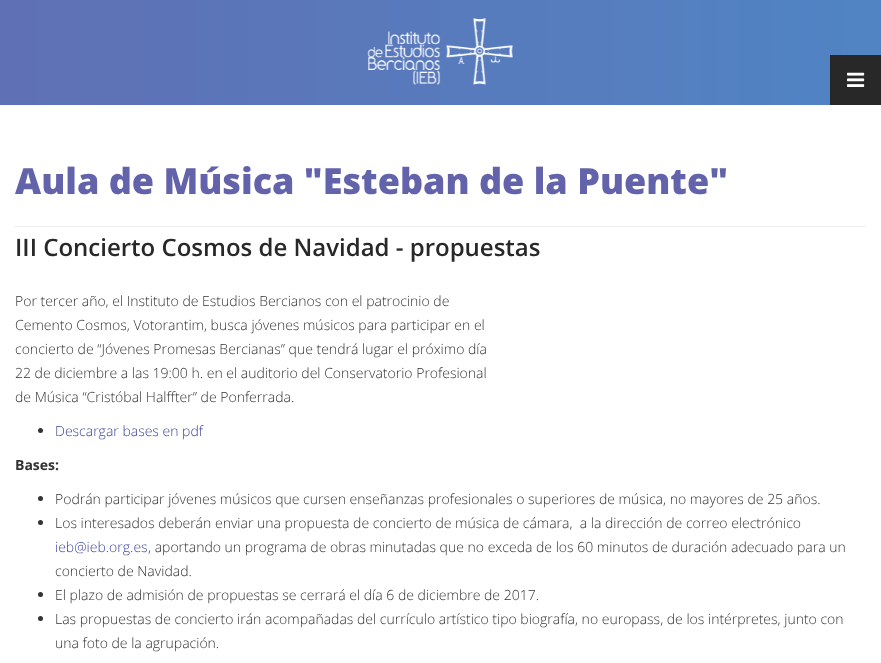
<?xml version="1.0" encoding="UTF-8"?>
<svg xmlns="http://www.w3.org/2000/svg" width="881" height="663">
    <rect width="100%" height="100%" fill="#FFFFFF"/>
    <image x="0" y="0" width="881" height="105" href="img_01.png"/>
    <image x="367" y="18" width="146" height="67" href="img_02.png"/>
    <rect x="830" y="55" width="51" height="50" fill="#282828"/>
    <image x="847" y="72" width="18" height="15" href="img_03.png"/>
    <rect x="15" y="226" width="851" height="1" fill="#EEEEEE"/>
    <text x="15" y="194" font-family="Open Sans" font-size="36" font-weight="800" fill="#6363AC">Aula de Música "Esteban de la Puente"</text>
    <text x="15" y="256" font-family="Open Sans" font-size="24" font-weight="600" fill="#282828">III Concierto Cosmos de Navidad - propuestas</text>
    <text font-family="Open Sans" font-size="14" font-weight="300" fill="#333333">
        <tspan x="15" y="306">Por tercer año, el Instituto de Estudios Bercianos con el patrocinio de</tspan>
        <tspan x="15" y="330">Cemento Cosmos, Votorantim, busca jóvenes músicos para participar en el</tspan>
        <tspan x="15" y="354">concierto de “Jóvenes Promesas Bercianas” que tendrá lugar el próximo día</tspan>
        <tspan x="15" y="378">22 de diciembre a las 19:00 h. en el auditorio del Conservatorio Profesional</tspan>
        <tspan x="15" y="402">de Música “Cristóbal Halffter” de Ponferrada.</tspan>
    </text>
    <circle cx="40.5" cy="430.5" r="2.5" fill="#333333"/>
    <text x="55" y="436" font-family="Open Sans" font-size="14" font-weight="300" fill="#3D449A">Descargar bases en pdf</text>
    <text x="15" y="470" font-family="Open Sans" font-size="14" font-weight="700" fill="#333333">Bases:</text>
    <circle cx="40.5" cy="498.5" r="2.5" fill="#333333"/>
    <text x="55" y="504" font-family="Open Sans" font-size="14" font-weight="300" fill="#333333">Podrán participar jóvenes músicos que cursen enseñanzas profesionales o superiores de música, no mayores de 25 años.</text>
    <circle cx="40.5" cy="522.5" r="2.5" fill="#333333"/>
    <text x="55" y="528" font-family="Open Sans" font-size="14" font-weight="300" fill="#333333" xml:space="preserve">Los interesados deberán enviar una propuesta de concierto de música de cámara,  a la dirección de correo electrónico</text>
    <text x="55" y="552" font-family="Open Sans" font-size="14" font-weight="300" fill="#3D449A">ieb@ieb.org.es</text>
    <text x="148" y="552" font-family="Open Sans" font-size="14" font-weight="300" fill="#333333">, aportando un programa de obras minutadas que no exceda de los 60 minutos de duración adecuado para un</text>
    <text x="55" y="576" font-family="Open Sans" font-size="14" font-weight="300" fill="#333333">concierto de Navidad.</text>
    <circle cx="40.5" cy="594.5" r="2.5" fill="#333333"/>
    <text x="55" y="600" font-family="Open Sans" font-size="14" font-weight="300" fill="#333333">El plazo de admisión de propuestas se cerrará el día 6 de diciembre de 2017.</text>
    <circle cx="40.5" cy="618.5" r="2.5" fill="#333333"/>
    <text font-family="Open Sans" font-size="14" font-weight="300" fill="#333333">
        <tspan x="55" y="624">Las propuestas de concierto irán acompañadas del currículo artístico tipo biografía, no europass, de los intérpretes, junto con</tspan>
        <tspan x="55" y="648">una foto de la agrupación.</tspan>
    </text>
</svg>
